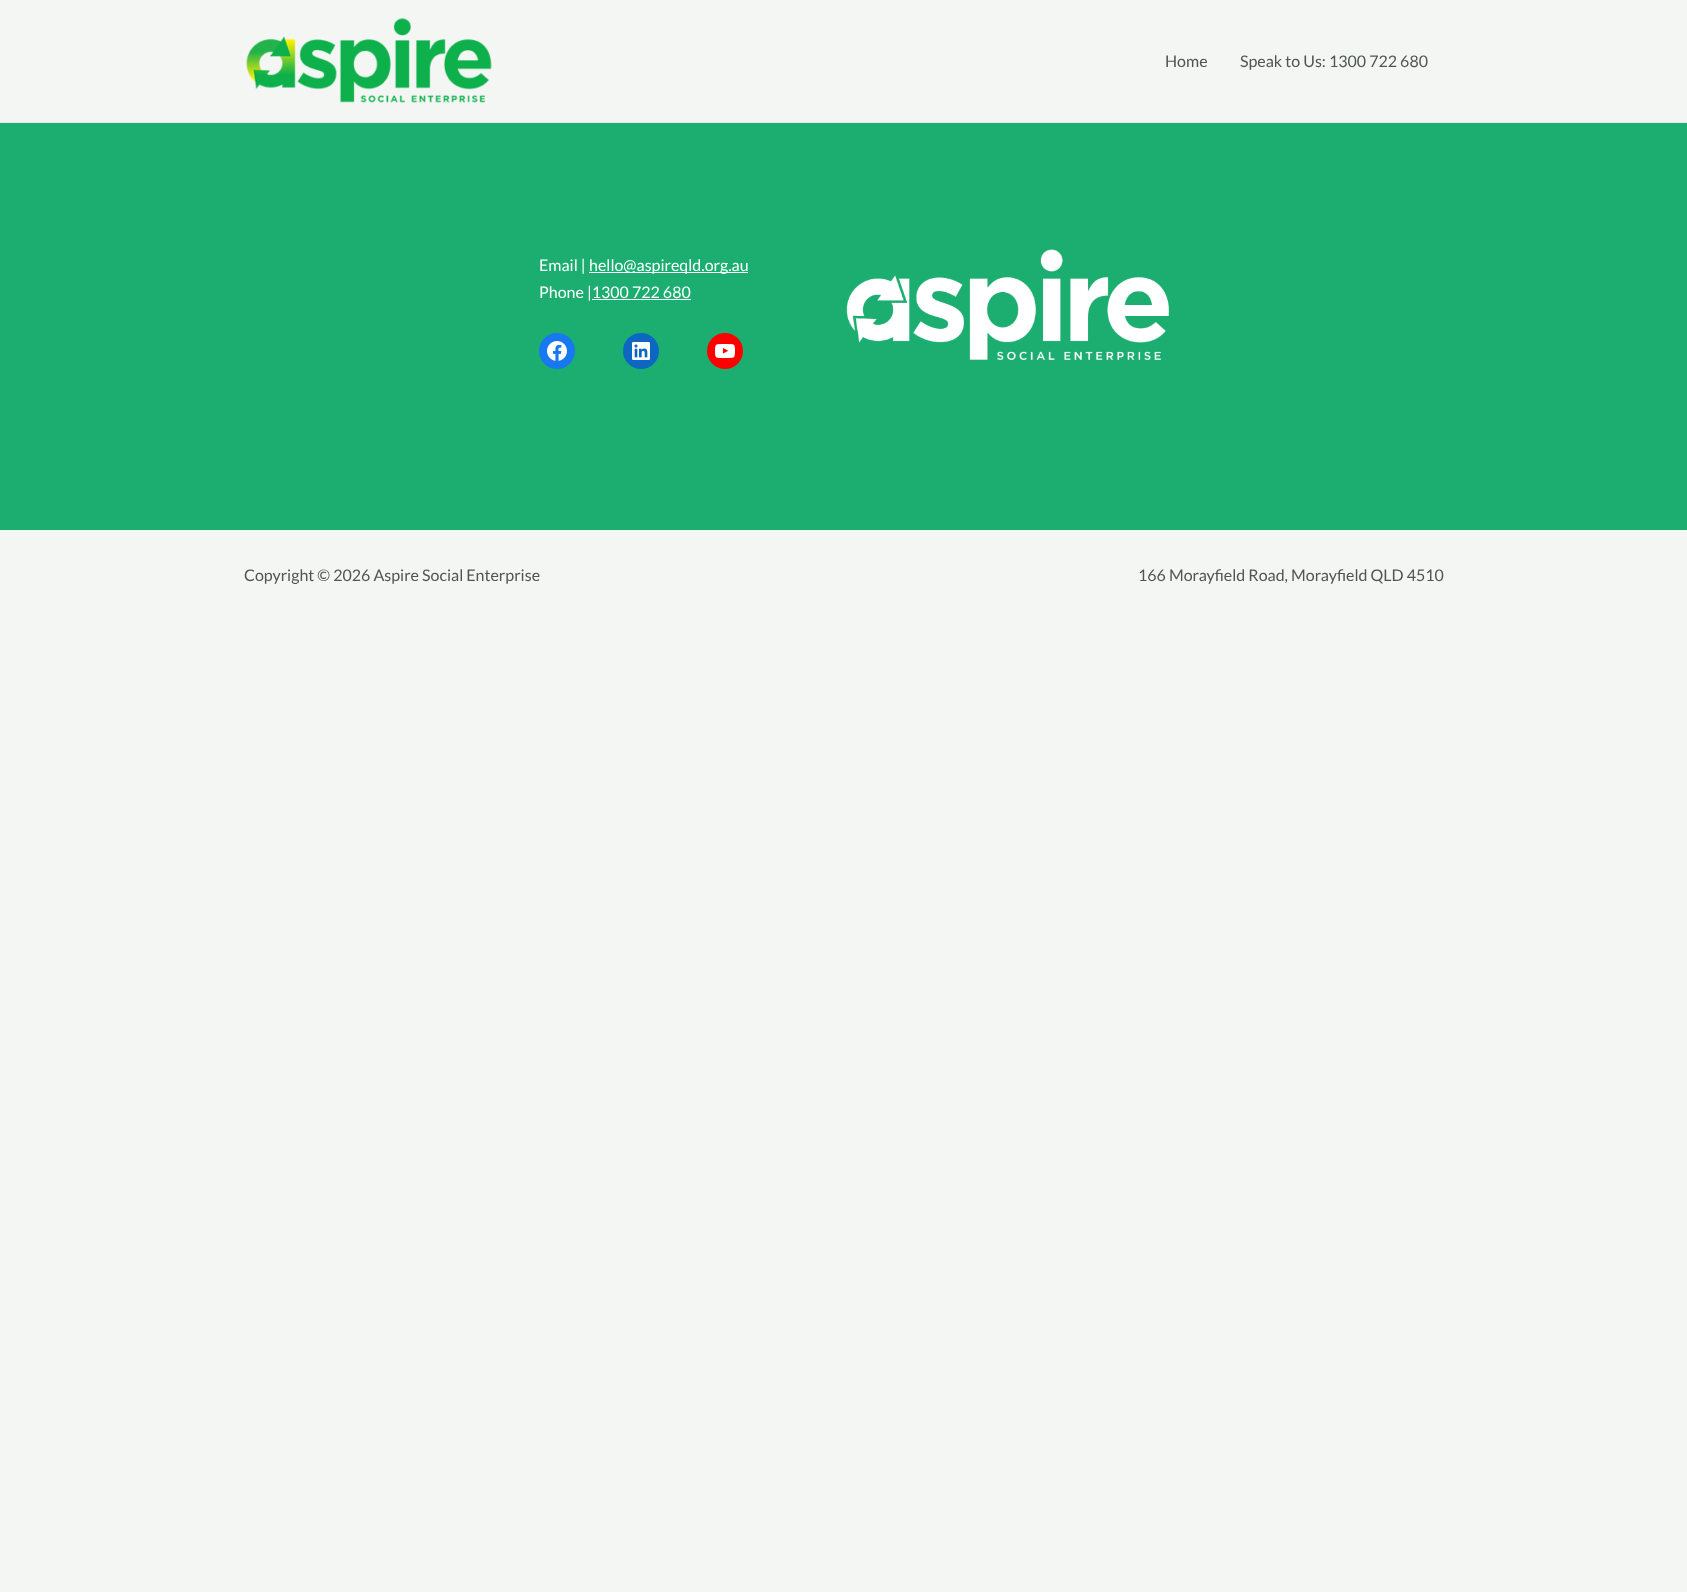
<?xml version="1.0" encoding="UTF-8"?>
<svg xmlns="http://www.w3.org/2000/svg" width="1687" height="1592">
    <rect width="100%" height="100%" fill="#F4F6F4"/>
    <rect x="0" y="121" width="1687" height="1" fill="#F1F2F2"/>
    <image x="246" y="18" width="246" height="85" href="img_01.png"/>
    <text x="1165" y="67" font-family="Lato" font-size="16" fill="#4E5652">Home</text>
    <text x="1240" y="67" font-family="Lato" font-size="16" fill="#4E5652">Speak to Us: 1300 722 680</text>
    <rect x="0" y="123" width="1687" height="407" fill="#1BAE70"/>
    <rect x="0" y="122" width="1687" height="1" fill="#E6E6E6"/>
    <text x="539" y="271" font-family="Lato" font-size="16" fill="#FFFFFF">Email |</text>
    <rect x="589" y="272" width="159" height="1" fill="#FFFFFF"/>
    <text x="589" y="271" font-family="Lato" font-size="16" fill="#FFFFFF">hello@aspireqld.org.au</text>
    <text x="539" y="298" font-family="Lato" font-size="16" fill="#FFFFFF">Phone |1300 722 680</text>
    <rect x="592" y="299" width="99" height="1" fill="#FFFFFF"/>
    <circle cx="557" cy="351" r="18" fill="#1778F2"/>
    <image x="547" y="341" width="20" height="20" href="img_02.png"/>
    <circle cx="641" cy="351" r="18" fill="#0D66C2"/>
    <image x="632" y="342" width="18" height="18" href="img_03.png"/>
    <circle cx="725" cy="351" r="18" fill="#FF0000"/>
    <image x="715" y="344" width="20" height="14" href="img_04.png"/>
    <image x="846" y="249" width="323" height="111" href="img_05.png"/>
    <rect x="0" y="530" width="1687" height="1" fill="#F1F2F2"/>
    <text x="244" y="581" font-family="Lato" font-size="16" fill="#4E5652">Copyright © 2026 Aspire Social Enterprise</text>
    <text x="1138" y="581" font-family="Lato" font-size="16" fill="#4E5652">166 Morayfield Road, Morayfield QLD 4510</text>
</svg>
